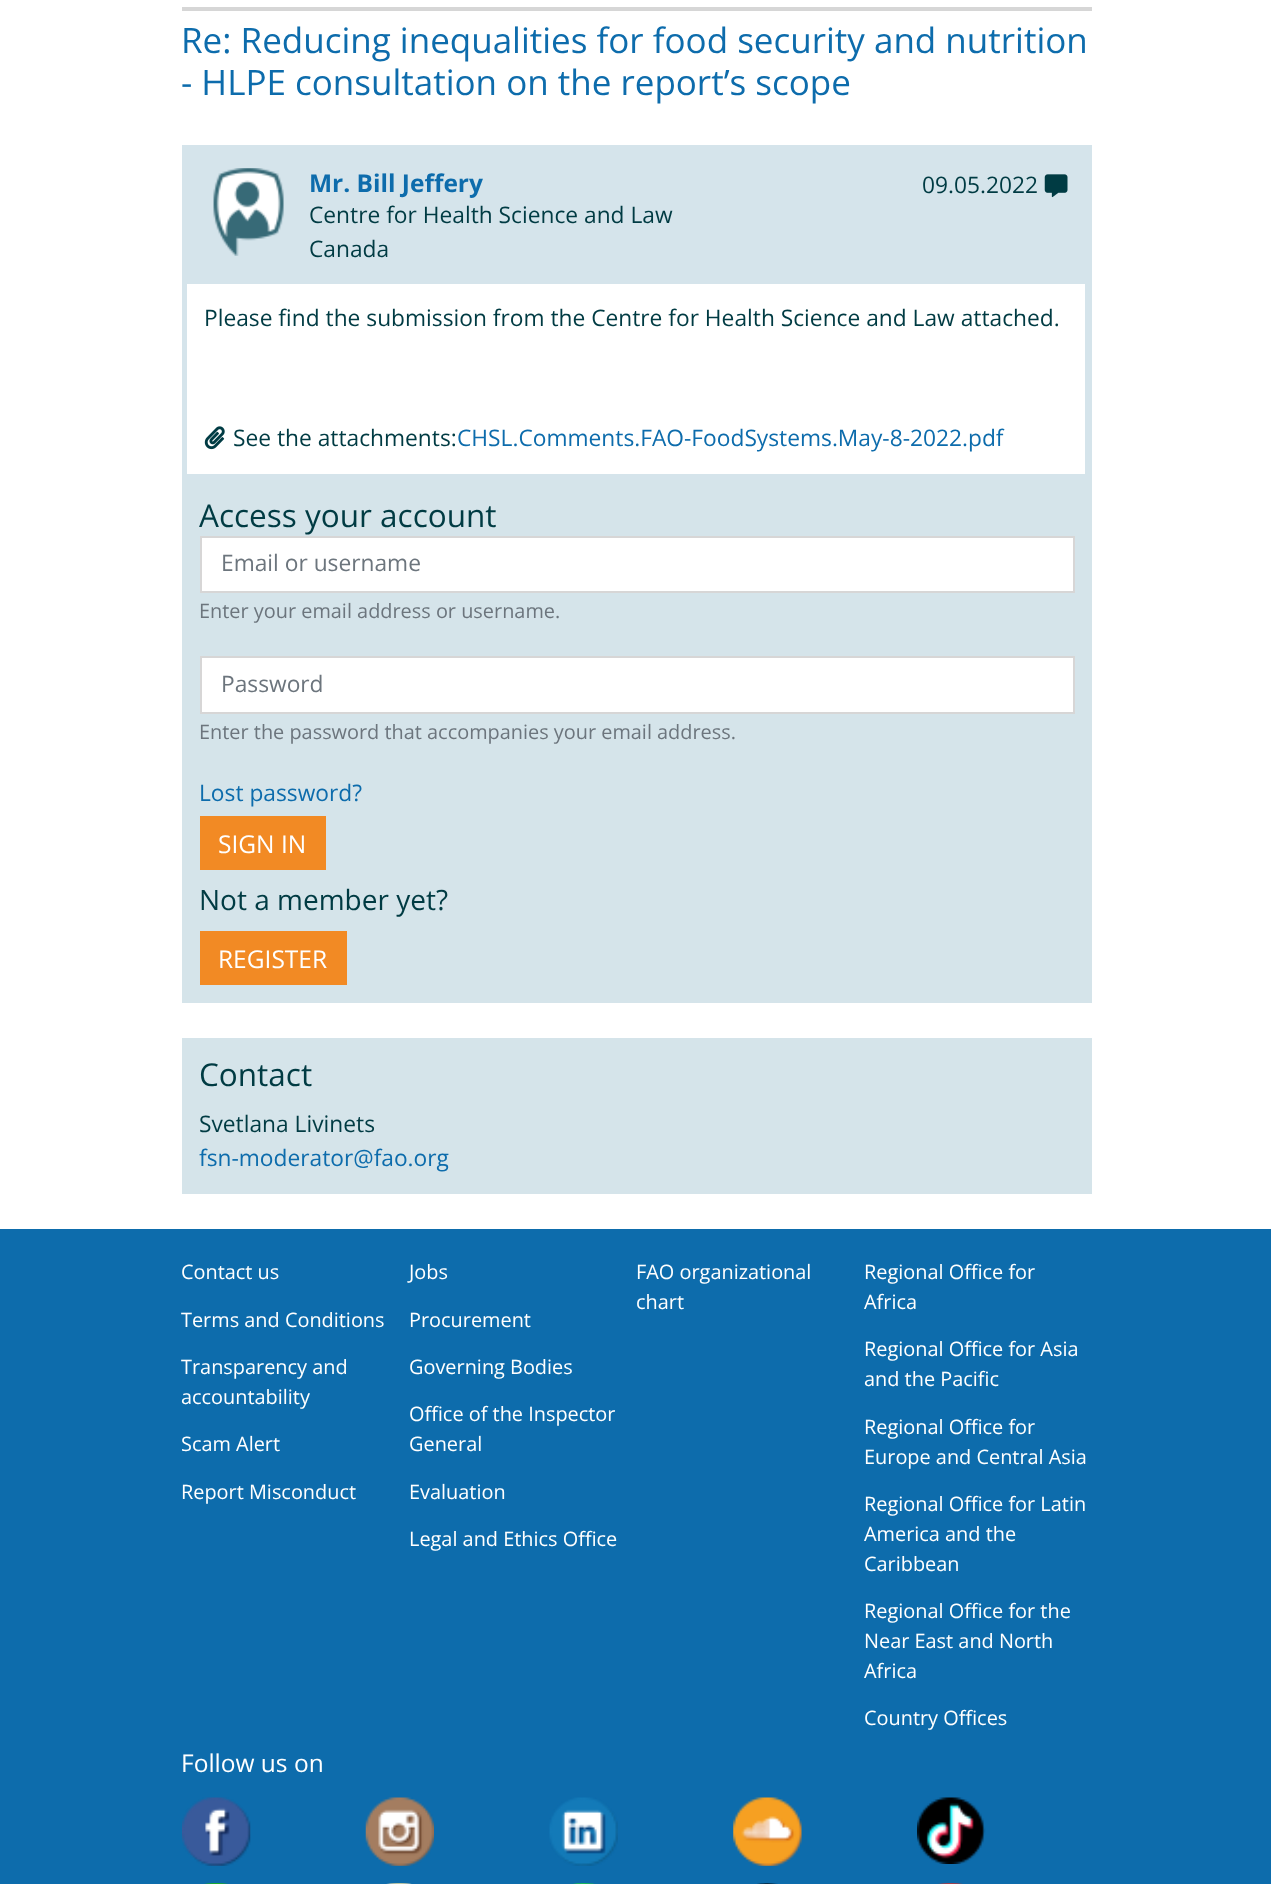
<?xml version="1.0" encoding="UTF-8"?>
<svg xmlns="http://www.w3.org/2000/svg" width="1271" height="1884">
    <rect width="100%" height="100%" fill="#FFFFFF"/>
    <rect x="182" y="7" width="910" height="4" fill="#D6D6D6"/>
    <text font-family="Open Sans" font-size="35" fill="#0D6CAC">
        <tspan x="181" y="53">Re: Reducing inequalities for food security and nutrition</tspan>
        <tspan x="181" y="95">- HLPE consultation on the report’s scope</tspan>
    </text>
    <rect x="182" y="145" width="910" height="335" fill="#D5E4EB"/>
    <image x="213" y="168" width="71" height="88" href="img_01.png"/>
    <text x="309" y="192" font-family="Open Sans" font-size="24.5" font-weight="700" fill="#0D6CAC">Mr. Bill Jeffery</text>
    <text font-family="Open Sans" font-size="22.75" fill="#003B43">
        <tspan x="309" y="223">Centre for Health Science and Law</tspan>
        <tspan x="309" y="257">Canada</tspan>
    </text>
    <text x="922" y="193" font-family="Open Sans" font-size="22.75" fill="#003B43">09.05.2022</text>
    <image x="1044" y="174" width="24" height="24" href="img_02.png"/>
    <rect x="187" y="284" width="898" height="190" fill="#FFFFFF"/>
    <text x="204" y="326" font-family="Open Sans" font-size="22.75" fill="#003B43">Please find the submission from the Centre for Health Science and Law attached.</text>
    <image x="204" y="426" width="21" height="24" href="img_03.png"/>
    <text x="233" y="446" font-family="Open Sans" font-size="22.75" fill="#003B43">See the attachments:</text>
    <text x="457" y="446" font-family="Open Sans" font-size="22.75" fill="#0D6CAC">CHSL.Comments.FAO-FoodSystems.May-8-2022.pdf</text>
    <rect x="182" y="480" width="910" height="523" fill="#D5E4EA"/>
    <text x="199" y="527" font-family="Open Sans" font-size="31.5" fill="#003B43">Access your account</text>
    <rect x="201" y="537" width="873" height="55" fill="#FFFFFF" stroke="#D7D6D6" stroke-width="2"/>
    <text x="221" y="571" font-family="Open Sans" font-size="22.75" fill="#6C757D">Email or username</text>
    <text x="199" y="618" font-family="Open Sans" font-size="19.9" fill="#6C757D">Enter your email address or username.</text>
    <rect x="201" y="657" width="873" height="56" fill="#FFFFFF" stroke="#D7D6D6" stroke-width="2"/>
    <text x="221" y="692" font-family="Open Sans" font-size="22.75" fill="#6C757D">Password</text>
    <text x="199" y="739" font-family="Open Sans" font-size="19.9" fill="#6C757D">Enter the password that accompanies your email address.</text>
    <text x="199" y="801" font-family="Open Sans" font-size="22.75" fill="#0D6CAC">Lost password?</text>
    <rect x="200" y="816" width="126" height="54" fill="#F28A24"/>
    <text x="218" y="853" font-family="Open Sans" font-size="24.5" fill="#FFFFFF">SIGN IN</text>
    <text x="199" y="910" font-family="Open Sans" font-size="28" fill="#003B43">Not a member yet?</text>
    <rect x="200" y="931" width="147" height="54" fill="#F28A24"/>
    <text x="218" y="968" font-family="Open Sans" font-size="24.5" fill="#FFFFFF">REGISTER</text>
    <rect x="182" y="1038" width="910" height="156" fill="#D5E4EA"/>
    <text x="199" y="1086" font-family="Open Sans" font-size="31.5" fill="#003B43">Contact</text>
    <text x="199" y="1132" font-family="Open Sans" font-size="22.75" fill="#003B43">Svetlana Livinets</text>
    <text x="199" y="1166" font-family="Open Sans" font-size="22.75" fill="#0D6CAC">fsn-moderator@fao.org</text>
    <rect x="0" y="1229" width="1271" height="655" fill="#0D6CAC"/>
    <text x="181" y="1279" font-family="Open Sans" font-size="19.9" fill="#FFFFFF">Contact us</text>
    <text x="181" y="1327" font-family="Open Sans" font-size="19.9" fill="#FFFFFF">Terms and Conditions</text>
    <text font-family="Open Sans" font-size="19.9" fill="#FFFFFF">
        <tspan x="181" y="1374">Transparency and</tspan>
        <tspan x="181" y="1404">accountability</tspan>
    </text>
    <text x="181" y="1451" font-family="Open Sans" font-size="19.9" fill="#FFFFFF">Scam Alert</text>
    <text x="181" y="1499" font-family="Open Sans" font-size="19.9" fill="#FFFFFF">Report Misconduct</text>
    <text x="409" y="1279" font-family="Open Sans" font-size="19.9" fill="#FFFFFF">Jobs</text>
    <text x="409" y="1327" font-family="Open Sans" font-size="19.9" fill="#FFFFFF">Procurement</text>
    <text x="409" y="1374" font-family="Open Sans" font-size="19.9" fill="#FFFFFF">Governing Bodies</text>
    <text font-family="Open Sans" font-size="19.9" fill="#FFFFFF">
        <tspan x="409" y="1421">Office of the Inspector</tspan>
        <tspan x="409" y="1451">General</tspan>
    </text>
    <text x="409" y="1499" font-family="Open Sans" font-size="19.9" fill="#FFFFFF">Evaluation</text>
    <text x="409" y="1546" font-family="Open Sans" font-size="19.9" fill="#FFFFFF">Legal and Ethics Office</text>
    <text font-family="Open Sans" font-size="19.9" fill="#FFFFFF">
        <tspan x="636" y="1279">FAO organizational</tspan>
        <tspan x="636" y="1309">chart</tspan>
    </text>
    <text font-family="Open Sans" font-size="19.9" fill="#FFFFFF">
        <tspan x="864" y="1279">Regional Office for</tspan>
        <tspan x="864" y="1309">Africa</tspan>
    </text>
    <text font-family="Open Sans" font-size="19.9" fill="#FFFFFF">
        <tspan x="864" y="1356">Regional Office for Asia</tspan>
        <tspan x="864" y="1386">and the Pacific</tspan>
    </text>
    <text font-family="Open Sans" font-size="19.9" fill="#FFFFFF">
        <tspan x="864" y="1434">Regional Office for</tspan>
        <tspan x="864" y="1464">Europe and Central Asia</tspan>
    </text>
    <text font-family="Open Sans" font-size="19.9" fill="#FFFFFF">
        <tspan x="864" y="1511">Regional Office for Latin</tspan>
        <tspan x="864" y="1541">America and the</tspan>
        <tspan x="864" y="1571">Caribbean</tspan>
    </text>
    <text font-family="Open Sans" font-size="19.9" fill="#FFFFFF">
        <tspan x="864" y="1618">Regional Office for the</tspan>
        <tspan x="864" y="1648">Near East and North</tspan>
        <tspan x="864" y="1678">Africa</tspan>
    </text>
    <text x="864" y="1725" font-family="Open Sans" font-size="19.9" fill="#FFFFFF">Country Offices</text>
    <text x="181" y="1772" font-family="Open Sans" font-size="24.5" fill="#FFFFFF">Follow us on</text>
    <image x="182" y="1797" width="69" height="69" href="img_04.png"/>
    <image x="365" y="1797" width="69" height="69" href="img_05.png"/>
    <image x="549" y="1797" width="69" height="69" href="img_06.png"/>
    <image x="733" y="1797" width="69" height="69" href="img_07.png"/>
    <image x="917" y="1797" width="69" height="67" href="img_08.png"/>
    <image x="204" y="1883" width="25" height="1" href="img_09.png"/>
    <image x="386" y="1883" width="26" height="1" href="img_10.png"/>
    <image x="570" y="1883" width="28" height="1" href="img_11.png"/>
    <image x="757" y="1883" width="21" height="1" href="img_12.png"/>
    <image x="938" y="1883" width="25" height="1" href="img_13.png"/>
</svg>
